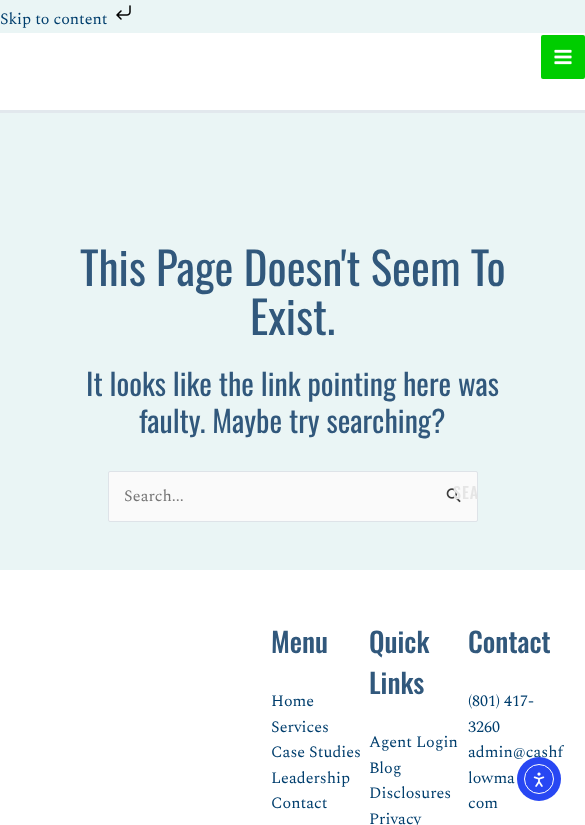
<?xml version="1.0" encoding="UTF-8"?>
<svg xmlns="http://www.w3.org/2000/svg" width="585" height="825">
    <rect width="100%" height="100%" fill="#EAF5F5"/>
    <text x="0" y="24" font-family="Spectral" font-size="16" fill="#003E6D">Skip to content</text>
    <image x="116" y="5" width="15" height="15" href="img_01.png"/>
    <rect x="0" y="33" width="585" height="77" fill="#FFFFFF"/>
    <rect x="0" y="110" width="585" height="3" fill="#E2E8ED"/>
    <rect x="541" y="35" width="44" height="44" rx="2" fill="#00CD00"/>
    <image x="554" y="49" width="18" height="16" href="img_02.png"/>
    <text x="80" y="286" font-family="Oswald" font-size="45" fill="#31587C">This Page Doesn't Seem To</text>
    <text x="250" y="335" font-family="Oswald" font-size="45" fill="#31587C">Exist.</text>
    <text x="86" y="396" font-family="Oswald" font-size="30" fill="#31587C">It looks like the link pointing here was</text>
    <text x="139" y="433" font-family="Oswald" font-size="30" fill="#31587C">faulty. Maybe try searching?</text>
    <rect x="108.5" y="471.5" width="369" height="50" rx="1.5" fill="#FAFAFA" stroke="#DEE3E8"/>
    <text x="124" y="501" font-family="Spectral" font-size="16" fill="#757575">Search...</text>
    <image x="446" y="488" width="15" height="15" href="img_03.png"/>
    <text x="453" y="499" font-family="Oswald" font-size="16" font-weight="500" letter-spacing="1" fill="#E5E5E5">SEA</text>
    <rect x="0" y="570" width="585" height="255" fill="#FFFFFF"/>
    <text x="271" y="653" font-family="Oswald" font-size="27.5" font-weight="500" fill="#31587C">Menu</text>
    <text font-family="Spectral" font-size="16" fill="#003E6D">
        <tspan x="271" y="706">Home</tspan>
        <tspan x="271" y="732">Services</tspan>
        <tspan x="271" y="757">Case Studies</tspan>
        <tspan x="271" y="783">Leadership</tspan>
        <tspan x="271" y="808">Contact</tspan>
    </text>
    <text font-family="Oswald" font-size="27.5" font-weight="500" fill="#31587C">
        <tspan x="369" y="653">Quick</tspan>
        <tspan x="369" y="694">Links</tspan>
    </text>
    <text font-family="Spectral" font-size="16" fill="#003E6D">
        <tspan x="369" y="747">Agent Login</tspan>
        <tspan x="369" y="773">Blog</tspan>
        <tspan x="369" y="798">Disclosures</tspan>
        <tspan x="369" y="824">Privacy</tspan>
    </text>
    <text x="468" y="653" font-family="Oswald" font-size="27.5" font-weight="500" fill="#31587C">Contact</text>
    <text font-family="Spectral" font-size="16" fill="#003E6D">
        <tspan x="468" y="706">(801) 417-</tspan>
        <tspan x="468" y="732">3260</tspan>
        <tspan x="468" y="757">admin@cashf</tspan>
        <tspan x="468" y="783">lowma</tspan>
        <tspan x="468" y="808">com</tspan>
    </text>
    <circle cx="539" cy="779" r="22" fill="#2847F3"/>
    <circle cx="539" cy="779" r="14.5" fill="none" stroke="#FFFFFF"/>
    <image x="533" y="772" width="12" height="15" href="img_04.png"/>
</svg>
